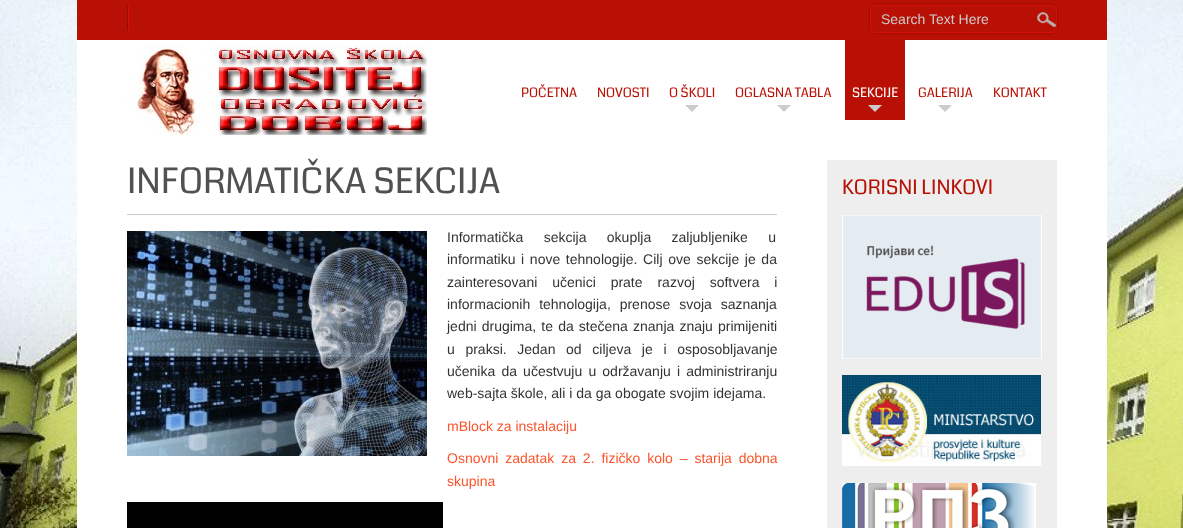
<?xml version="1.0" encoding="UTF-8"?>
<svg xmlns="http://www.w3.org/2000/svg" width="1183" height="528">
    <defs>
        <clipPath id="clip1"><path d="M 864 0 H 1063 V 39 H 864 Z M 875 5 H 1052 C 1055 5 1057 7 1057 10 V 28 C 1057 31 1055 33 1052 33 H 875 C 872 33 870 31 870 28 V 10 C 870 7 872 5 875 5 Z" clip-rule="evenodd"/></clipPath>
        <filter id="blur1" x="-50%" y="-200%" width="200%" height="500%"><feGaussianBlur stdDeviation="1.5"/></filter>
    </defs>
    <rect width="100%" height="100%" fill="#FFFFFF"/>
    <image x="0" y="0" width="1183" height="528" href="img_01.png"/>
    <rect x="77" y="40" width="1030" height="488" fill="#FFFFFF"/>
    <rect x="77" y="0" width="1030" height="40" fill="#B81005"/>
    <rect x="128" y="5" width="1" height="25" fill="#D61003"/>
    <rect x="127" y="5" width="1" height="25" fill="#940D05"/>
    <g clip-path="url(#clip1)">
        <rect x="870" y="5" width="187" height="28" rx="5" fill="#940D05" filter="url(#blur1)"/>
    </g>
    <image x="1037" y="12" width="19" height="15" href="img_02.png"/>
    <rect x="870.5" y="5.5" width="186" height="27" rx="4.5" fill="none" stroke="#D61003"/>
    <text x="881" y="24" font-family="Liberation Sans" font-size="14" fill="#CCCCCC">Search Text Here</text>
    <image x="127" y="45" width="300" height="90" href="img_03.png"/>
    <text x="521" y="97" font-family="Coda" font-size="13" fill="#B81005">POČETNA</text>
    <text x="597" y="97" font-family="Coda" font-size="13" fill="#B81005">NOVOSTI</text>
    <text x="669" y="97" font-family="Coda" font-size="13" fill="#B81005">O ŠKOLI</text>
    <path d="M 685 105 H 699 L 692 112 Z" fill="#CCCCCC"/>
    <text x="735" y="97" font-family="Coda" font-size="13" fill="#B81005">OGLASNA TABLA</text>
    <path d="M 777 105 H 791 L 784 112 Z" fill="#CCCCCC"/>
    <rect x="845" y="40" width="60" height="80" fill="#B81005"/>
    <text x="852" y="97" font-family="Coda" font-size="13" fill="#FFFFFF">SEKCIJE</text>
    <path d="M 868 105 H 882 L 875 112 Z" fill="#CCCCCC"/>
    <text x="918" y="97" font-family="Coda" font-size="13" fill="#B81005">GALERIJA</text>
    <path d="M 938 105 H 952 L 945 112 Z" fill="#CCCCCC"/>
    <text x="993" y="97" font-family="Coda" font-size="13" fill="#B81005">KONTAKT</text>
    <text x="127" y="193" font-family="Coda" font-size="35" fill="#515151">INFORMATIČKA SEKCIJA</text>
    <rect x="127" y="214" width="650" height="1" fill="#CCCCCC"/>
    <image x="127" y="231" width="300" height="225" href="img_04.png"/>
    <text font-family="Liberation Sans" font-size="14" fill="#333333">
        <tspan x="447" y="242" word-spacing="16.5">Informatička sekcija okuplja zaljubljenike u</tspan>
        <tspan x="447" y="264" word-spacing="1.75">informatiku i nove tehnologije. Cilj ove sekcije je da</tspan>
        <tspan x="447" y="287" word-spacing="11">zainteresovani učenici prate razvoj softvera i</tspan>
        <tspan x="447" y="309" word-spacing="5">informacionih tehnologija, prenose svoja saznanja</tspan>
        <tspan x="447" y="331" word-spacing="1.25">jedni drugima, te da stečena znanja znaju primijeniti</tspan>
        <tspan x="447" y="354" word-spacing="6.75">u praksi. Jedan od ciljeva je i osposobljavanje</tspan>
        <tspan x="447" y="376" word-spacing="2.25">učenika da učestvuju u održavanju i administriranju</tspan>
        <tspan x="447" y="398">web-sajta škole, ali i da ga obogate svojim idejama.</tspan>
    </text>
    <text x="447" y="431" font-family="Liberation Sans" font-size="14" fill="#FC542B">mBlock za instalaciju</text>
    <text font-family="Liberation Sans" font-size="14" fill="#FC542B">
        <tspan x="447" y="463" word-spacing="3">Osnovni zadatak za 2. fizičko kolo – starija dobna</tspan>
        <tspan x="447" y="486">skupina</tspan>
    </text>
    <rect x="127" y="502" width="316" height="26" fill="#000000"/>
    <rect x="827" y="160" width="230" height="368" fill="#EEEEEE"/>
    <text x="842" y="194" font-family="Coda" font-size="20" fill="#B81005">KORISNI LINKOVI</text>
    <image x="842" y="215" width="200" height="144" href="img_05.png"/>
    <image x="842" y="375" width="199" height="91" href="img_06.png"/>
    <image x="842" y="483" width="194" height="45" href="img_07.png"/>
</svg>
